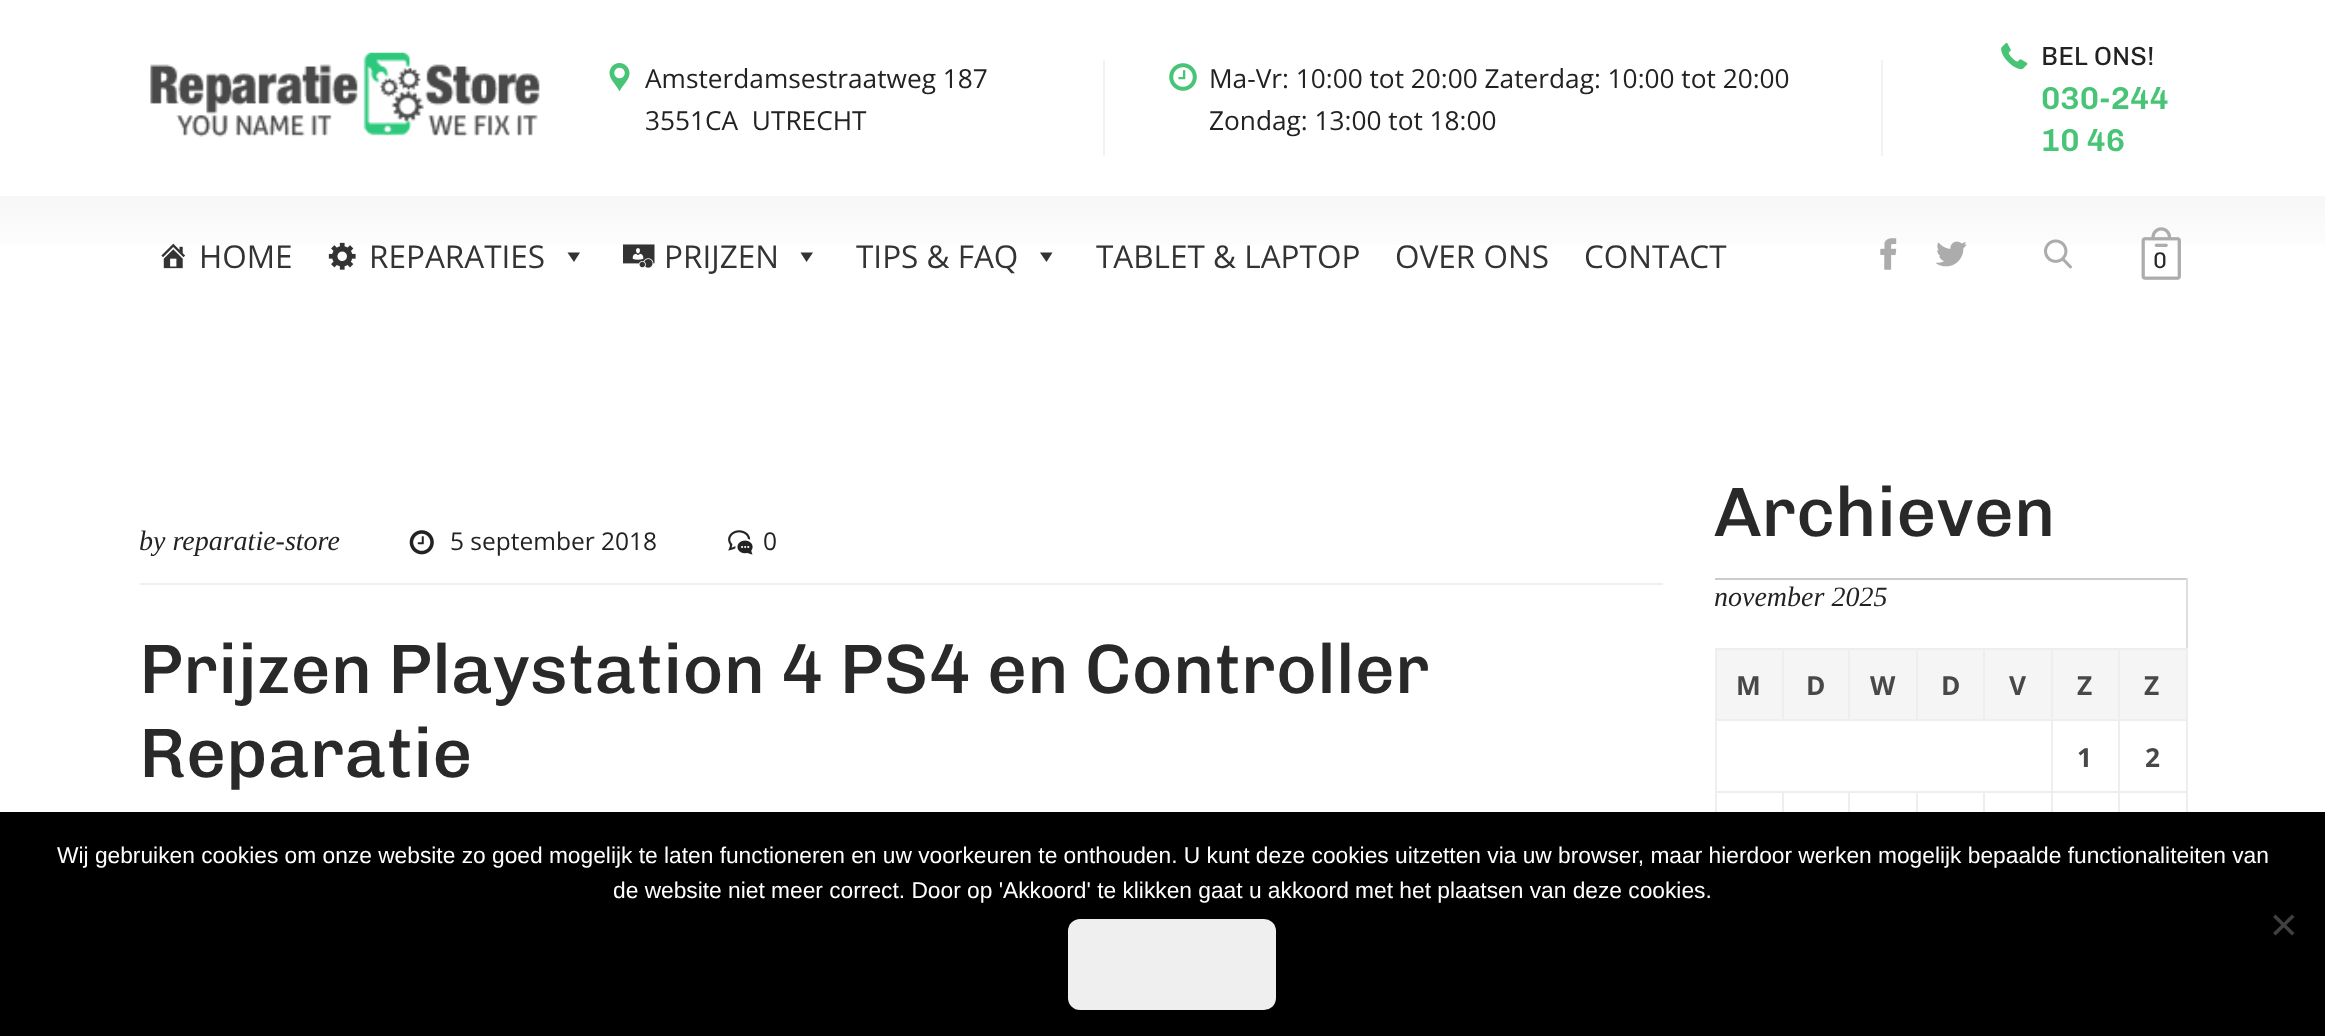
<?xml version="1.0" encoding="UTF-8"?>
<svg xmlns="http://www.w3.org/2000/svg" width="2325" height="1036">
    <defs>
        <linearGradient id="g1" gradientUnits="userSpaceOnUse" x1="1163" y1="196" x2="1163" y2="315"><stop offset="0" stop-color="#F7F7F7"/><stop offset="0.6" stop-color="#FFFFFF"/></linearGradient>
    </defs>
    <rect width="100%" height="100%" fill="#FFFFFF"/>
    <image x="150" y="52" width="390" height="85" href="img_01.png"/>
    <image x="609" y="63" width="21" height="28" href="img_02.png"/>
    <text x="645" y="88" font-family="Open Sans" font-size="26.25" fill="#222222">Amsterdamsestraatweg 187</text>
    <rect x="1103" y="60" width="2" height="96" fill="#F2F2F2"/>
    <text x="645" y="130" font-family="Open Sans" font-size="26.25" fill="#222222" xml:space="preserve">3551CA  UTRECHT</text>
    <image x="1169" y="63" width="28" height="28" href="img_03.png"/>
    <text x="1209" y="88" font-family="Open Sans" font-size="26.25" fill="#222222">Ma-Vr: 10:00 tot 20:00 Zaterdag: 10:00 tot 20:00</text>
    <rect x="1881" y="60" width="2" height="96" fill="#F2F2F2"/>
    <text x="1209" y="130" font-family="Open Sans" font-size="26.25" fill="#222222">Zondag: 13:00 tot 18:00</text>
    <image x="2001" y="42" width="27" height="28" href="img_04.png"/>
    <text x="2041" y="65" font-family="Chivo" font-size="26.25" fill="#222222">BEL ONS!</text>
    <text font-family="Chivo" font-size="31.5" font-weight="600" fill="#48C476">
        <tspan x="2041" y="109">030-244</tspan>
        <tspan x="2041" y="151">10 46</tspan>
    </text>
    <rect x="0" y="196" width="2325" height="49" fill="url(#g1)"/>
    <image x="161" y="243" width="24" height="26" href="img_05.png"/>
    <text x="199" y="268" font-family="Open Sans" font-size="31.5" fill="#333333">HOME</text>
    <image x="328" y="242" width="28" height="28" href="img_06.png"/>
    <text x="369" y="268" font-family="Open Sans" font-size="31.5" fill="#333333">REPARATIES</text>
    <path d="M 580 252.5 L 574 262 L 567.5 252.5 Z" fill="#333333"/>
    <image x="623" y="244" width="32" height="24" href="img_07.png"/>
    <text x="664" y="268" font-family="Open Sans" font-size="31.5" fill="#333333">PRIJZEN</text>
    <path d="M 813 252.5 L 806.5 262 L 800.5 252.5 Z" fill="#333333"/>
    <text x="856" y="268" font-family="Open Sans" font-size="31.5" fill="#333333">TIPS &amp; FAQ</text>
    <path d="M 1052.5 252.5 L 1046.5 262 L 1040 252.5 Z" fill="#333333"/>
    <text x="1096" y="268" font-family="Open Sans" font-size="31.5" fill="#333333">TABLET &amp; LAPTOP</text>
    <text x="1395" y="268" font-family="Open Sans" font-size="31.5" fill="#333333">OVER ONS</text>
    <text x="1584" y="268" font-family="Open Sans" font-size="31.5" fill="#333333">CONTACT</text>
    <image x="1880" y="238" width="17" height="32" href="img_08.png"/>
    <image x="1936" y="241" width="31" height="26" href="img_09.png"/>
    <image x="2044" y="239" width="28" height="30" href="img_10.png"/>
    <image x="2141" y="227" width="40" height="53" href="img_11.png"/>
    <text x="2153" y="268" font-family="Chivo" font-size="22.75" fill="#292929">0</text>
    <rect x="140" y="583" width="1523" height="2" fill="#EFEFEF"/>
    <text x="139" y="550" font-family="Liberation Serif" font-size="28" font-style="italic" fill="#222222">by reparatie-store</text>
    <image x="409" y="530" width="25" height="25" href="img_12.png"/>
    <text x="450" y="550" font-family="Open Sans" font-size="24.5" fill="#222222">5 september 2018</text>
    <image x="728" y="530" width="25" height="25" href="img_13.png"/>
    <text x="763" y="550" font-family="Open Sans" font-size="24.5" fill="#222222">0</text>
    <text font-family="Chivo" font-size="70" font-weight="500" fill="#292929">
        <tspan x="139" y="693">Prijzen Playstation 4 PS4 en Controller</tspan>
        <tspan x="139" y="777">Reparatie</tspan>
    </text>
    <text x="1714" y="536" font-family="Chivo" font-size="70" font-weight="500" fill="#292929">Archieven</text>
    <rect x="1715" y="578" width="473" height="2" fill="#CCCCCC"/>
    <rect x="2186" y="578" width="2" height="70" fill="#DEDEDE"/>
    <text x="1714" y="606" font-family="Liberation Serif" font-size="28" font-style="italic" fill="#222222">november 2025</text>
    <rect x="1717" y="650" width="65" height="69" fill="#F5F5F5"/>
    <rect x="2118" y="648" width="70" height="2" fill="#EEEEEE"/>
    <rect x="2118" y="719" width="70" height="2" fill="#EEEEEE"/>
    <rect x="2118" y="791" width="70" height="2" fill="#EEEEEE"/>
    <rect x="2118" y="791" width="2" height="21" fill="#EEEEEE"/>
    <rect x="2051" y="791" width="68" height="2" fill="#EEEEEE"/>
    <rect x="2118" y="719" width="2" height="74" fill="#EEEEEE"/>
    <rect x="2051" y="719" width="68" height="2" fill="#EEEEEE"/>
    <rect x="2118" y="648" width="2" height="73" fill="#EEEEEE"/>
    <rect x="2051" y="648" width="68" height="2" fill="#EEEEEE"/>
    <rect x="2051" y="791" width="2" height="21" fill="#EEEEEE"/>
    <rect x="1983" y="791" width="70" height="2" fill="#EEEEEE"/>
    <rect x="2051" y="719" width="2" height="74" fill="#EEEEEE"/>
    <rect x="1715" y="719" width="338" height="2" fill="#EEEEEE"/>
    <rect x="2051" y="648" width="2" height="73" fill="#EEEEEE"/>
    <rect x="1983" y="648" width="70" height="2" fill="#EEEEEE"/>
    <rect x="1983" y="648" width="2" height="73" fill="#EEEEEE"/>
    <rect x="1916" y="648" width="69" height="2" fill="#EEEEEE"/>
    <rect x="1916" y="648" width="2" height="73" fill="#EEEEEE"/>
    <rect x="1848" y="648" width="70" height="2" fill="#EEEEEE"/>
    <rect x="1848" y="648" width="2" height="73" fill="#EEEEEE"/>
    <rect x="1782" y="648" width="68" height="2" fill="#EEEEEE"/>
    <rect x="1782" y="648" width="2" height="73" fill="#EEEEEE"/>
    <rect x="1715" y="648" width="68" height="2" fill="#EEEEEE"/>
    <rect x="1983" y="791" width="2" height="21" fill="#EEEEEE"/>
    <rect x="1916" y="791" width="69" height="2" fill="#EEEEEE"/>
    <rect x="1916" y="791" width="2" height="21" fill="#EEEEEE"/>
    <rect x="1848" y="791" width="70" height="2" fill="#EEEEEE"/>
    <rect x="1848" y="791" width="2" height="21" fill="#EEEEEE"/>
    <rect x="1782" y="791" width="68" height="2" fill="#EEEEEE"/>
    <rect x="1782" y="791" width="2" height="21" fill="#EEEEEE"/>
    <rect x="1715" y="791" width="68" height="2" fill="#EEEEEE"/>
    <rect x="1715" y="791" width="2" height="21" fill="#EEEEEE"/>
    <rect x="1715" y="719" width="2" height="74" fill="#EEEEEE"/>
    <rect x="1715" y="648" width="2" height="73" fill="#EEEEEE"/>
    <text x="1736" y="695" font-family="Open Sans" font-size="26.25" font-weight="700" fill="#484848">M</text>
    <rect x="1784" y="650" width="64" height="69" fill="#F5F5F5"/>
    <text x="1806" y="695" font-family="Open Sans" font-size="26.25" font-weight="700" fill="#484848">D</text>
    <rect x="1850" y="650" width="66" height="69" fill="#F5F5F5"/>
    <text x="1870" y="695" font-family="Open Sans" font-size="26.25" font-weight="700" fill="#484848">W</text>
    <rect x="1918" y="650" width="65" height="69" fill="#F5F5F5"/>
    <text x="1941" y="695" font-family="Open Sans" font-size="26.25" font-weight="700" fill="#484848">D</text>
    <rect x="1985" y="650" width="66" height="69" fill="#F5F5F5"/>
    <text x="2009" y="695" font-family="Open Sans" font-size="26.25" font-weight="700" fill="#484848">V</text>
    <rect x="2053" y="650" width="65" height="69" fill="#F5F5F5"/>
    <text x="2077" y="695" font-family="Open Sans" font-size="26.25" font-weight="700" fill="#484848">Z</text>
    <rect x="2120" y="650" width="66" height="69" fill="#F5F5F5"/>
    <rect x="2186" y="791" width="2" height="21" fill="#EEEEEE"/>
    <rect x="2186" y="719" width="2" height="74" fill="#EEEEEE"/>
    <rect x="2186" y="648" width="2" height="73" fill="#EEEEEE"/>
    <text x="2144" y="695" font-family="Open Sans" font-size="26.25" font-weight="700" fill="#484848">Z</text>
    <text x="2077" y="767" font-family="Open Sans" font-size="26.25" font-weight="700" fill="#484848">1</text>
    <text x="2145" y="767" font-family="Open Sans" font-size="26.25" font-weight="700" fill="#484848">2</text>
    <rect x="0" y="812" width="2325" height="224" fill="#000000"/>
    <text x="57" y="863" font-family="Liberation Sans" font-size="22.75" fill="#FFFFFF">Wij gebruiken cookies om onze website zo goed mogelijk te laten functioneren en uw voorkeuren te onthouden. U kunt deze cookies uitzetten via uw browser, maar hierdoor werken mogelijk bepaalde functionaliteiten van</text>
    <text x="613" y="898" font-family="Liberation Sans" font-size="22.75" fill="#FFFFFF">de website niet meer correct. Door op 'Akkoord' te klikken gaat u akkoord met het plaatsen van deze cookies.</text>
    <rect x="1068" y="919" width="208" height="91" rx="12" fill="#EFEFEF"/>
    <path d="M 2292 914.5 L 2294.5 917 L 2275.5 935.5 L 2273 933 Z" fill="#404040"/>
    <path d="M 2273 917 L 2275.5 914.5 L 2294.5 933 L 2292 935.5 Z" fill="#404040"/>
</svg>
